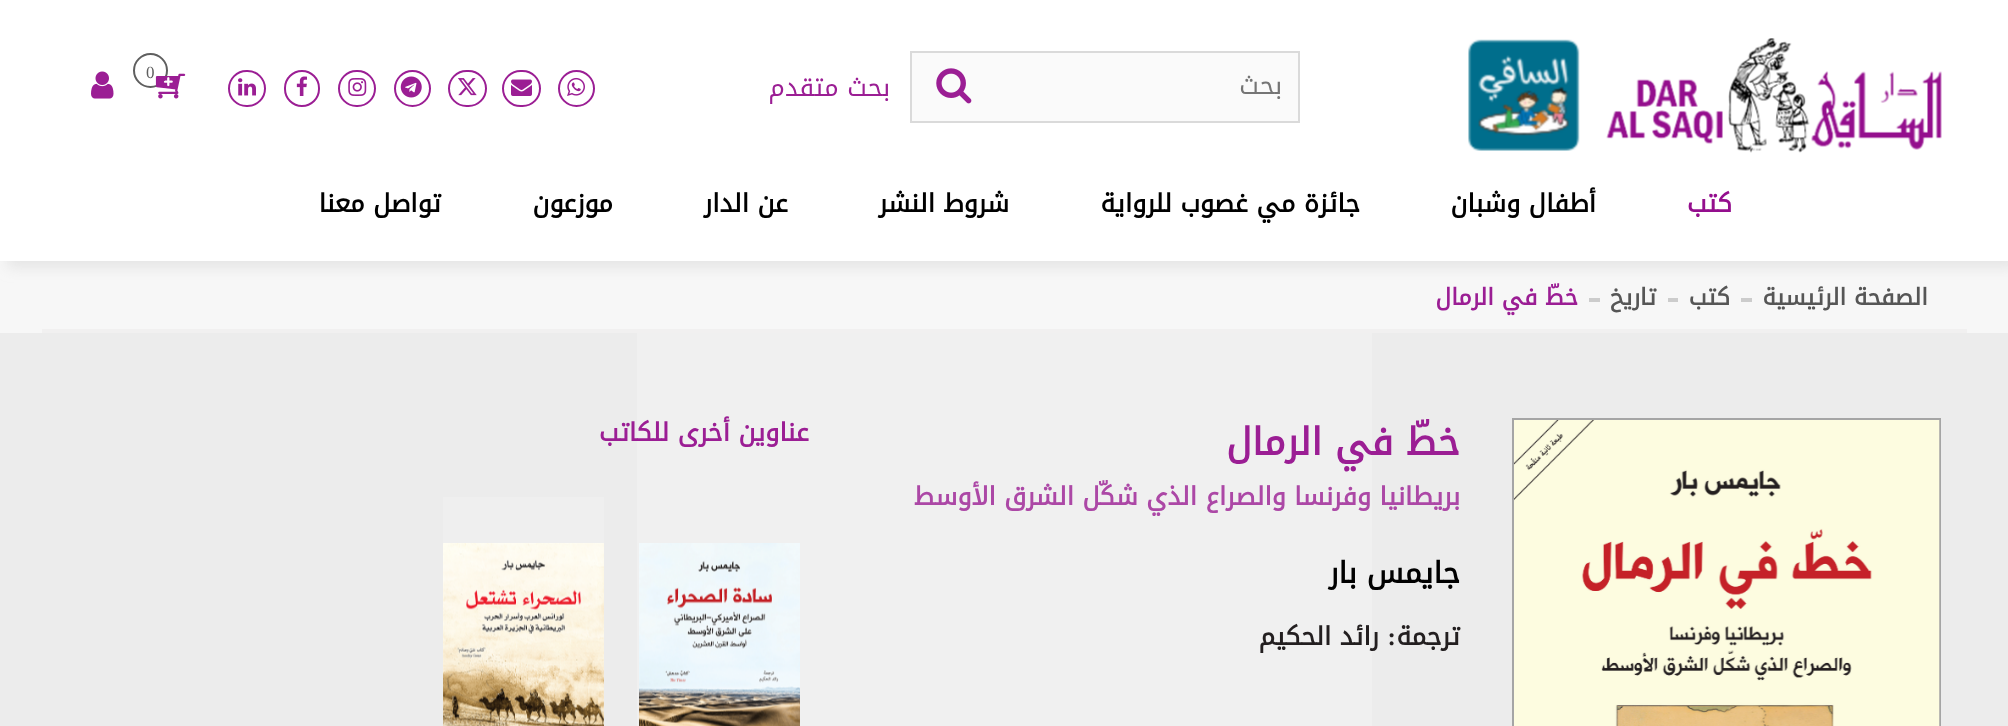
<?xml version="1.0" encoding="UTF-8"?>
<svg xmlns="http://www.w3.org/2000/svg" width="2008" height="726">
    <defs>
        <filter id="blur1" x="-50%" y="-200%" width="200%" height="500%"><feGaussianBlur stdDeviation="7"/></filter>
    </defs>
    <rect width="100%" height="100%" fill="#ECECEC"/>
    <rect x="0" y="261" width="2008" height="72" fill="#F7F7F7"/>
    <rect x="7" y="7" width="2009" height="261" fill="#CECCCC" fill-opacity="0.42" filter="url(#blur1)"/>
    <rect x="0" y="0" width="2008" height="261" fill="#FFFFFF"/>
    <image x="1606" y="38" width="336" height="115" href="img_01.png"/>
    <image x="1468" y="39" width="112" height="112" href="img_02.png"/>
    <circle cx="576.5" cy="88.5" r="17.5" fill="none" stroke="#9B1E94" stroke-width="2"/>
    <image x="567" y="77" width="18" height="19" href="img_03.png"/>
    <rect x="503" y="71" width="37" height="35" rx="17.5" fill="none" stroke="#9B1E94" stroke-width="2"/>
    <image x="511" y="79" width="21" height="17" href="img_04.png"/>
    <rect x="449" y="71" width="37" height="35" rx="17.5" fill="none" stroke="#9B1E94" stroke-width="2"/>
    <image x="458" y="78" width="19" height="18" href="img_05.png"/>
    <circle cx="412.5" cy="88.5" r="17.5" fill="none" stroke="#9B1E94" stroke-width="2"/>
    <image x="400" y="76" width="22" height="22" href="img_06.png"/>
    <rect x="339" y="71" width="36" height="35" rx="17.5" fill="none" stroke="#9B1E94" stroke-width="2"/>
    <image x="348" y="78" width="19" height="18" href="img_07.png"/>
    <rect x="285" y="71" width="34" height="35" rx="17" fill="none" stroke="#9B1E94" stroke-width="2"/>
    <image x="296" y="76" width="11" height="20" href="img_08.png"/>
    <rect x="229" y="71" width="36" height="35" rx="17.5" fill="none" stroke="#9B1E94" stroke-width="2"/>
    <image x="238" y="78" width="18" height="18" href="img_09.png"/>
    <circle cx="150.5" cy="70.5" r="16.5" fill="none" stroke="#5F5F5F" stroke-width="2"/>
    <image x="155" y="73" width="31" height="26" href="img_10.png"/>
    <text x="146" y="78" font-family="Liberation Serif" font-size="17" fill="#5F5F5F">0</text>
    <image x="91" y="71" width="23" height="28" href="img_11.png"/>
    <rect x="911" y="52" width="388" height="70" fill="#FAFAFA" stroke="#DADADA" stroke-width="2"/>
    <text x="1282" y="94" font-family="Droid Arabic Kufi" font-size="25.2" direction="rtl" fill="#757575">بحث</text>
    <image x="936" y="68" width="36" height="36" href="img_12.png"/>
    <text x="890" y="96" font-family="Droid Arabic Kufi" font-size="25.2" direction="rtl" fill="#9B1E94">بحث متقدم</text>
    <text x="1732" y="212" font-family="Droid Arabic Kufi" font-size="25.2" font-weight="700" direction="rtl" fill="#940E8D">كتب</text>
    <text x="1596" y="212" font-family="Droid Arabic Kufi" font-size="25.2" font-weight="700" direction="rtl" fill="#000000">أطفال وشبان</text>
    <text x="1360" y="212" font-family="Droid Arabic Kufi" font-size="25.2" font-weight="700" direction="rtl" fill="#000000">جائزة مي غصوب للرواية</text>
    <text x="1009" y="212" font-family="Droid Arabic Kufi" font-size="25.2" font-weight="700" direction="rtl" fill="#000000">شروط النشر</text>
    <text x="788" y="212" font-family="Droid Arabic Kufi" font-size="25.2" font-weight="700" direction="rtl" fill="#000000">عن الدار</text>
    <text x="613" y="212" font-family="Droid Arabic Kufi" font-size="25.2" font-weight="700" direction="rtl" fill="#000000">موزعون</text>
    <text x="441" y="212" font-family="Droid Arabic Kufi" font-size="25.2" font-weight="700" direction="rtl" fill="#000000">تواصل معنا</text>
    <rect x="42" y="329" width="1925" height="4" fill="#F1F0F0"/>
    <text x="1928" y="305" font-family="Droid Arabic Kufi" font-size="23" font-weight="700" direction="rtl" fill="#565656">الصفحة الرئيسية</text>
    <rect x="1741" y="298" width="11" height="4" fill="#CCCCCC"/>
    <text x="1730" y="305" font-family="Droid Arabic Kufi" font-size="23" font-weight="700" direction="rtl" fill="#565656">كتب</text>
    <rect x="1668" y="298" width="10" height="4" fill="#CCCCCC"/>
    <text x="1656" y="305" font-family="Droid Arabic Kufi" font-size="23" font-weight="700" direction="rtl" fill="#565656">تاريخ</text>
    <rect x="1589" y="298" width="11" height="4" fill="#CCCCCC"/>
    <text x="1578" y="305" font-family="Droid Arabic Kufi" font-size="23" font-weight="700" direction="rtl" fill="#9B1E94">خطّ في الرمال</text>
    <rect x="637" y="333" width="735" height="393" fill="#F0F0F0"/>
    <rect x="1513" y="419" width="427" height="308" fill="none" stroke="#A5A5A5" stroke-width="2"/>
    <image x="1514" y="420" width="426" height="306" href="img_13.png"/>
    <text x="1460" y="455" font-family="Droid Arabic Kufi" font-size="37.75" font-weight="700" direction="rtl" fill="#9B1E94">خطّ في الرمال</text>
    <text x="1460" y="505" font-family="Droid Arabic Kufi" font-size="25.2" font-weight="700" direction="rtl" fill="#AC48A6">بريطانيا وفرنسا والصراع الذي شكّل الشرق الأوسط</text>
    <text x="1460" y="583" font-family="Droid Arabic Kufi" font-size="29.5" font-weight="700" direction="rtl" fill="#000000">جايمس بار</text>
    <text x="1460" y="645" font-family="Droid Arabic Kufi" font-size="25.2" font-weight="700" direction="rtl" fill="#231F20">ترجمة</text>
    <text x="1396" y="645" font-family="Liberation Serif" font-size="25.2" font-weight="700" direction="rtl" fill="#231F20">:</text>
    <text x="1379" y="645" font-family="Droid Arabic Kufi" font-size="25.2" font-weight="700" direction="rtl" fill="#231F20">رائد الحكيم</text>
    <text x="809" y="441" font-family="Droid Arabic Kufi" font-size="25.2" font-weight="700" direction="rtl" fill="#9B1E94">عناوين أخرى للكاتب</text>
    <image x="639" y="543" width="161" height="183" href="img_14.png"/>
    <rect x="443" y="497" width="161" height="229" fill="#EFEFEF"/>
    <image x="443" y="543" width="161" height="183" href="img_15.png"/>
</svg>
